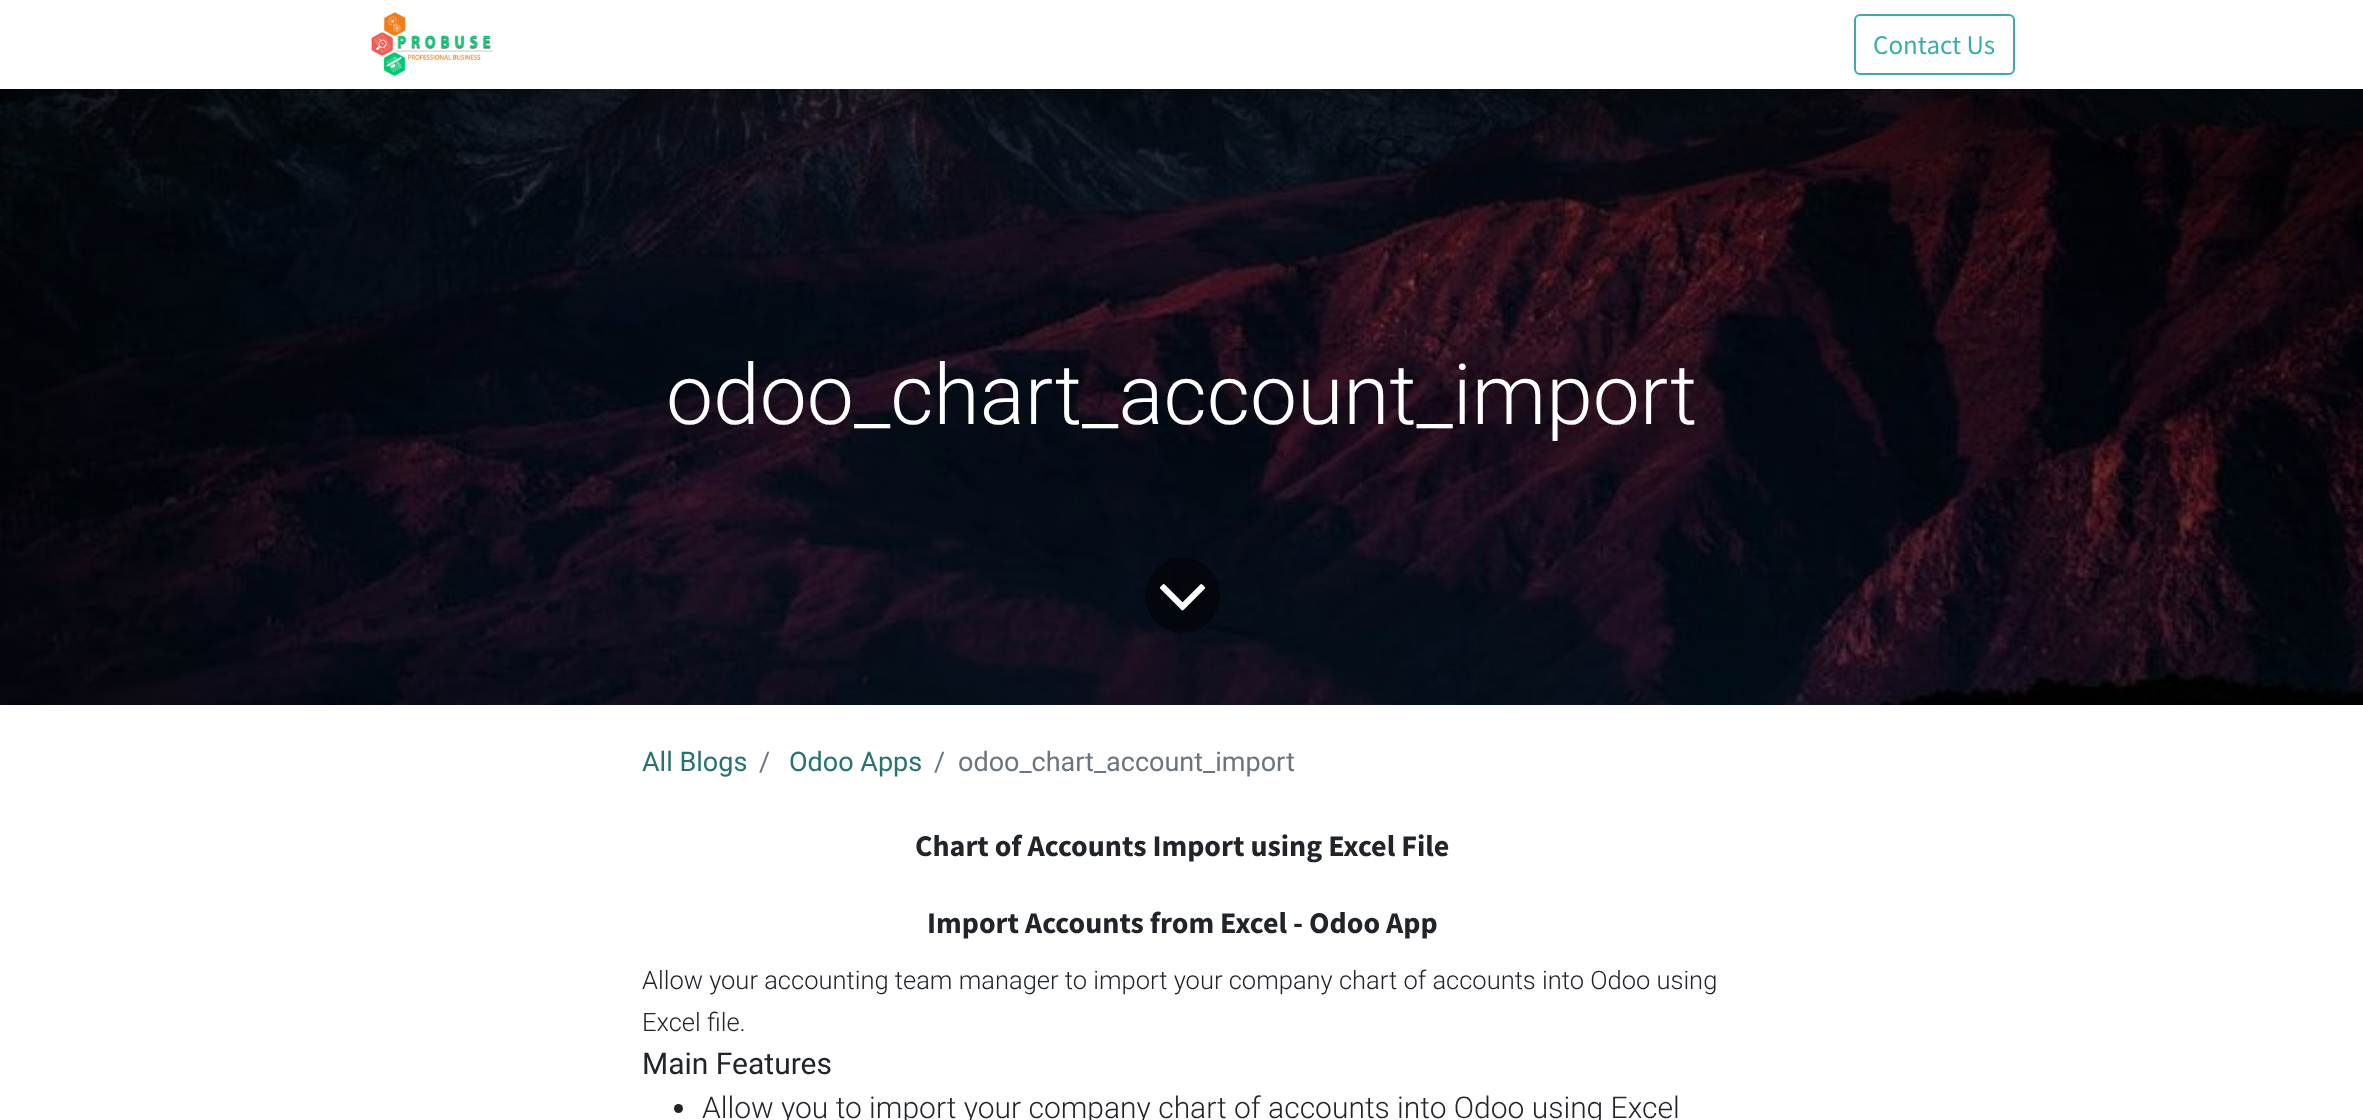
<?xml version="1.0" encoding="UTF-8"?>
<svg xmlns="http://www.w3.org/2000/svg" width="2363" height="1120">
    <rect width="100%" height="100%" fill="#FFFFFF"/>
    <image x="371" y="12" width="122" height="64" href="img_01.png"/>
    <rect x="1855" y="15" width="159" height="59" rx="5" fill="none" stroke="#3AADAA" stroke-width="2"/>
    <text x="1873" y="54" font-family="Source Sans Pro" font-size="27" fill="#3AADAA">Contact Us</text>
    <image x="0" y="89" width="2363" height="616" href="img_02.png"/>
    <text x="666" y="424" font-family="Roboto" font-size="84" font-weight="300" fill="#FFFFFF">odoo_chart_account_import</text>
    <circle cx="1182.5" cy="595.5" r="37.5" fill="#000000" fill-opacity="0.5"/>
    <image x="1160" y="584" width="46" height="27" href="img_03.png"/>
    <text x="642" y="771" font-family="Roboto" font-size="27" fill="#267372">All Blogs</text>
    <text x="759" y="771" font-family="Roboto" font-size="27" fill="#6C757D">/</text>
    <text x="789" y="771" font-family="Roboto" font-size="27" fill="#267372">Odoo Apps</text>
    <text x="934" y="771" font-family="Roboto" font-size="27" fill="#6C757D">/</text>
    <text x="958" y="771" font-family="Roboto" font-size="27" fill="#6C757D">odoo_chart_account_import</text>
    <text x="915" y="856" font-family="Source Sans Pro" font-size="30" font-weight="700" fill="#212529">Chart of Accounts Import using Excel File</text>
    <text x="927" y="933" font-family="Source Sans Pro" font-size="30" font-weight="700" fill="#212529">Import Accounts from Excel - Odoo App</text>
    <text font-family="Roboto" font-size="25.5" font-weight="300" fill="#212529">
        <tspan x="642" y="989">Allow your accounting team manager to import your company chart of accounts into Odoo using</tspan>
        <tspan x="642" y="1031">Excel file.</tspan>
    </text>
    <text x="642" y="1074" font-family="Roboto" font-size="30" fill="#212529">Main Features</text>
    <circle cx="678.5" cy="1108.5" r="4.5" fill="#212529"/>
    <text x="702" y="1118" font-family="Roboto" font-size="30" font-weight="300" fill="#212529">Allow you to import your company chart of accounts into Odoo using Excel</text>
</svg>
